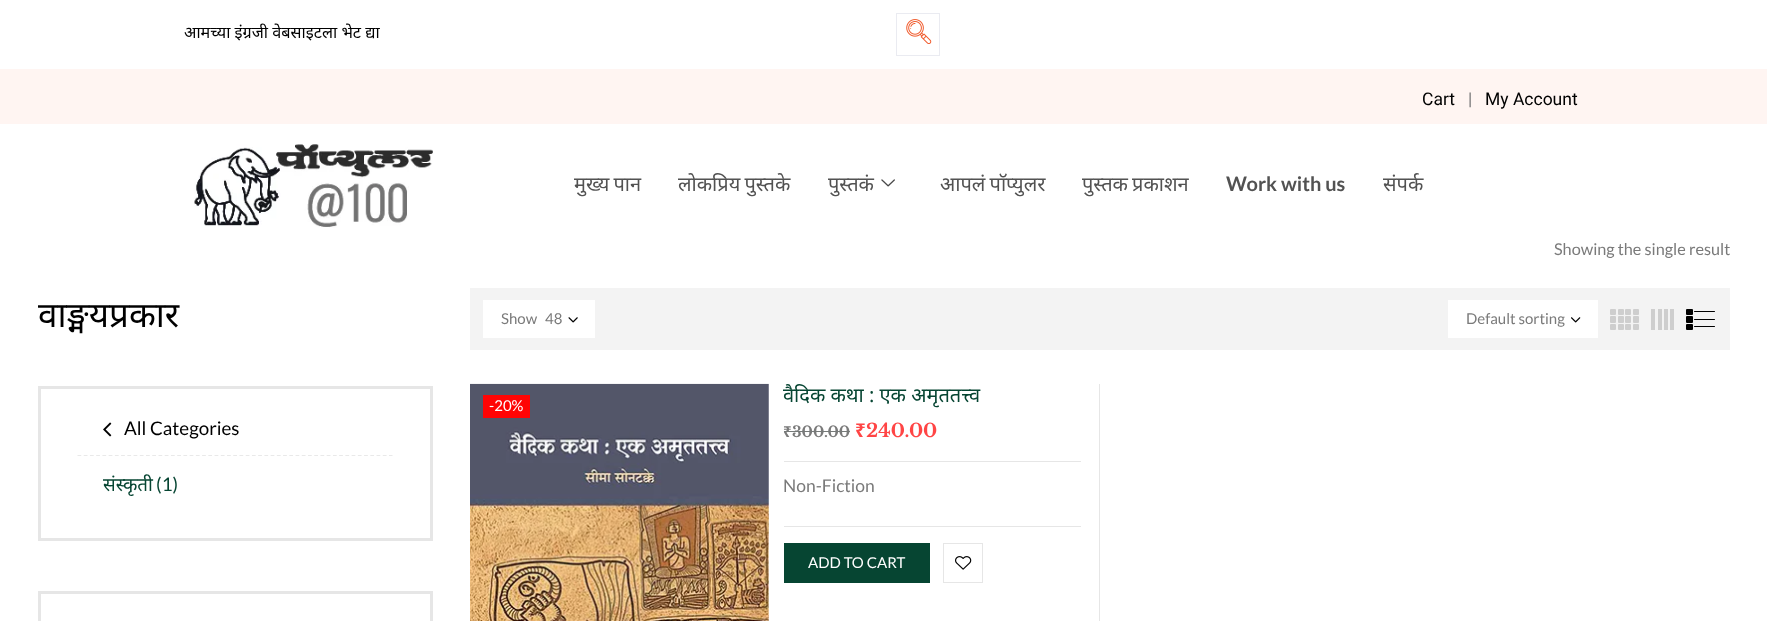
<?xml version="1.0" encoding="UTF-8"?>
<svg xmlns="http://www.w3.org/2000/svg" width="1767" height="621">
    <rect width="100%" height="100%" fill="#FFFFFF"/>
    <text x="184" y="38" font-family="Noto Sans" font-size="16.25" fill="#000000">आमच्या इंग्रजी वेबसाइटला भेट द्या</text>
    <rect x="896.5" y="13.5" width="43" height="42" fill="none" stroke="#EAEBF1"/>
    <image x="906" y="19" width="26" height="25" href="img_01.png"/>
    <rect x="0" y="69" width="1767" height="55" fill="#FFF5F2"/>
    <text x="1422" y="105" font-family="Roboto" font-size="17.5" fill="#000000">Cart</text>
    <text x="1468" y="105" font-family="Roboto" font-size="17.5" fill="#7A7A7A">|</text>
    <text x="1485" y="105" font-family="Roboto" font-size="17.5" fill="#000000">My Account</text>
    <image x="194" y="144" width="239" height="84" href="img_02.png"/>
    <text x="574" y="191" word-spacing="-1" font-family="Noto Sans" font-size="20" fill="#525252">मुख्य पान</text>
    <text x="678" y="191" word-spacing="-1" font-family="Noto Sans" font-size="20" fill="#525252">लोकप्रिय पुस्तके</text>
    <text x="828" y="191" font-family="Noto Sans" font-size="20" fill="#525252">पुस्तकं</text>
    <image x="881" y="179" width="14" height="8" href="img_03.png"/>
    <text x="940" y="191" word-spacing="-1" font-family="Noto Sans" font-size="20" fill="#525252">आपलं पाॅप्युलर</text>
    <text x="1082" y="191" word-spacing="-1" font-family="Noto Sans" font-size="20" fill="#525252">पुस्तक प्रकाशन</text>
    <text x="1226" y="191" font-family="Lato" font-size="20" font-weight="700" fill="#525252">Work with us</text>
    <text x="1383" y="191" font-family="Noto Sans" font-size="20" fill="#525252">संपर्क</text>
    <text x="38" y="327" font-family="Noto Sans" font-size="35" fill="#000000">वाङ्मयप्रकार</text>
    <rect x="39.5" y="387.5" width="392" height="152" fill="none" stroke="#E6E6E6" stroke-width="3"/>
    <path d="M 77.5 455.5 H 392.5" fill="none" stroke="#E9E9E9" stroke-width="1.2" stroke-dasharray="3.75 2.48"/>
    <image x="103" y="422" width="9" height="15" href="img_04.png"/>
    <text x="124" y="435" font-family="Lato" font-size="18.75" fill="#000000">All Categories</text>
    <text x="103" y="491" font-family="Noto Sans" font-size="18.75" fill="#064532">संस्कृती</text>
    <text x="156" y="491" font-family="Lato" font-size="18.75" fill="#064532">(1)</text>
    <rect x="39.5" y="592.5" width="392" height="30" fill="none" stroke="#E6E6E6" stroke-width="3"/>
    <text x="1554" y="255" font-family="Lato" font-size="16.25" fill="#7A7A7A">Showing the single result</text>
    <rect x="470" y="288" width="1260" height="62" fill="#F3F3F3"/>
    <rect x="483" y="300" width="112" height="38" fill="#FFFFFF"/>
    <text x="501" y="324" font-family="Lato" font-size="15" fill="#7A7A7A">Show</text>
    <text x="545" y="324" font-family="Lato" font-size="15" fill="#7A7A7A">48</text>
    <image x="568" y="317" width="10" height="6" href="img_05.png"/>
    <rect x="1448" y="300" width="150" height="38" fill="#FFFFFF"/>
    <text x="1466" y="324" font-family="Lato" font-size="15" fill="#7A7A7A">Default sorting</text>
    <image x="1571" y="317" width="10" height="6" href="img_06.png"/>
    <rect x="1610" y="309" width="6" height="6" rx="1" fill="#CECECE"/>
    <rect x="1618" y="309" width="6" height="6" rx="1" fill="#CECECE"/>
    <rect x="1625" y="309" width="6" height="6" rx="1" fill="#CECECE"/>
    <rect x="1633" y="309" width="6" height="6" rx="1" fill="#CECECE"/>
    <rect x="1610" y="316" width="6" height="7" rx="1" fill="#CECECE"/>
    <rect x="1618" y="316" width="6" height="7" rx="1" fill="#CECECE"/>
    <rect x="1625" y="316" width="6" height="7" rx="1" fill="#CECECE"/>
    <rect x="1633" y="316" width="6" height="7" rx="1" fill="#CECECE"/>
    <rect x="1610" y="324" width="6" height="6" rx="1" fill="#CECECE"/>
    <rect x="1618" y="324" width="6" height="6" rx="1" fill="#CECECE"/>
    <rect x="1625" y="324" width="6" height="6" rx="1" fill="#CECECE"/>
    <rect x="1633" y="324" width="6" height="6" rx="1" fill="#CECECE"/>
    <rect x="1651" y="309" width="4" height="21" fill="#CECECE"/>
    <rect x="1658" y="309" width="4" height="21" fill="#CECECE"/>
    <rect x="1664" y="309" width="4" height="21" fill="#CECECE"/>
    <rect x="1670" y="309" width="4" height="21" fill="#CECECE"/>
    <rect x="1686" y="309" width="7" height="6" rx="1" fill="#000000"/>
    <rect x="1694" y="311" width="21" height="1" rx="0.5" fill="#000000"/>
    <rect x="1686" y="316" width="7" height="7" rx="1" fill="#000000"/>
    <rect x="1694" y="319" width="21" height="1" rx="0.5" fill="#000000"/>
    <rect x="1686" y="324" width="7" height="6" rx="1" fill="#000000"/>
    <rect x="1694" y="326" width="21" height="1" rx="0.5" fill="#000000"/>
    <image x="470" y="383" width="299" height="238" href="img_07.png"/>
    <rect x="483" y="395" width="47" height="23" fill="#FF0404"/>
    <text x="489" y="411" font-family="Lato" font-size="15" fill="#FFFFFF">-20%</text>
    <text x="783" y="402" font-family="Noto Sans" font-size="20" fill="#064532">वैदिक कथा : एक अमृततत्त्व</text>
    <text x="783" y="437" font-family="Noto Sans" font-size="15" font-weight="700" fill="#7A7A7A">₹</text>
    <rect x="784" y="431" width="7" height="1" fill="#767A79"/>
    <text x="792" y="437" font-family="Libre Baskerville" font-size="15" font-weight="700" fill="#7A7A7A">300.00</text>
    <rect x="791" y="431" width="59" height="1" fill="#767A79"/>
    <text x="855" y="437" font-family="Noto Sans" font-size="18.75" font-weight="700" fill="#FF4545">₹</text>
    <text x="866" y="437" font-family="Libre Baskerville" font-size="18.75" font-weight="700" fill="#FF4545">240.00</text>
    <rect x="784" y="461" width="297" height="1" fill="#E6E6E6"/>
    <rect x="784" y="526" width="297" height="1" fill="#E6E6E6"/>
    <text x="783" y="492" font-family="Lato" font-size="17.5" fill="#7A7A7A">Non-Fiction</text>
    <rect x="784" y="543" width="146" height="40" fill="#064532"/>
    <text x="808" y="568" font-family="Lato" font-size="15" fill="#FFFFFF">ADD TO CART</text>
    <rect x="943.5" y="543.5" width="39" height="39" fill="none" stroke="#E6E6E6"/>
    <image x="955" y="556" width="17" height="14" href="img_08.png"/>
    <rect x="1099" y="384" width="1" height="237" fill="#E6E6E6"/>
</svg>
